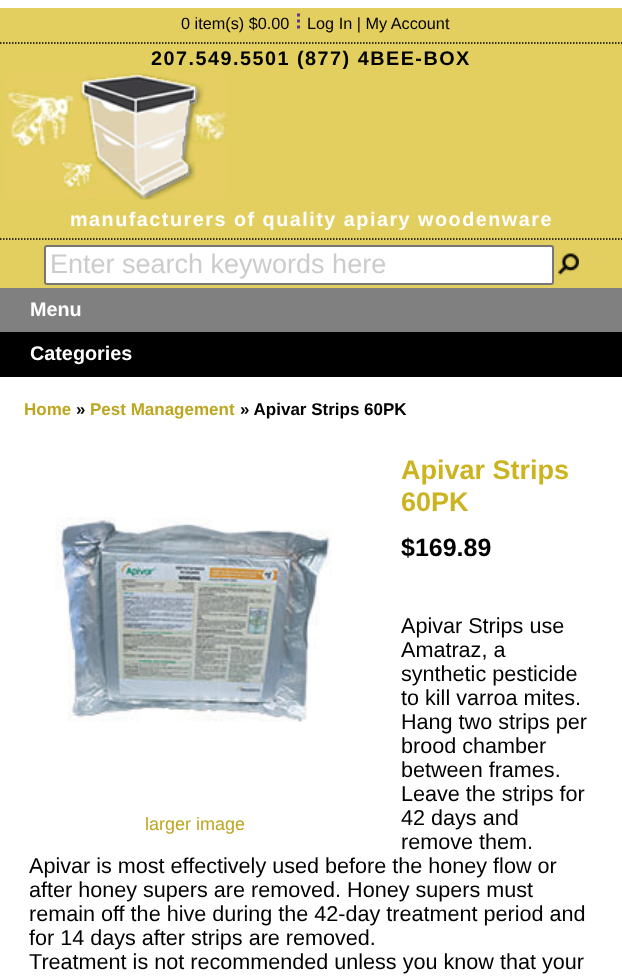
<?xml version="1.0" encoding="UTF-8"?>
<svg xmlns="http://www.w3.org/2000/svg" width="622" height="978">
    <rect width="100%" height="100%" fill="#FFFFFF"/>
    <rect x="0" y="8" width="622" height="280" fill="#E3CF5F"/>
    <path d="M 0 43 H 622.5" fill="none" stroke="#000000" stroke-width="1.5" stroke-dasharray="1.5 1.5"/>
    <text x="181" y="29" font-family="Liberation Sans" font-size="16.25" fill="#000000">0 item(s) $0.00</text>
    <path d="M 298.5 13.5 V 16.5 M 298.5 19.5 V 22.5 M 298.5 25.5 V 28.5" fill="none" stroke="#5E3786" stroke-width="3"/>
    <text x="307" y="29" font-family="Liberation Sans" font-size="16.25" fill="#000000">Log In | My Account</text>
    <text x="151" y="65" font-family="Liberation Sans" font-size="19.8" font-weight="700" letter-spacing="1.5" fill="#000000">207.549.5501 (877) 4BEE-BOX</text>
    <image x="6" y="73" width="221" height="127" href="img_01.png"/>
    <path d="M 0 239 H 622.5" fill="none" stroke="#000000" stroke-width="1.5" stroke-dasharray="1.5 1.5"/>
    <text x="70" y="226" font-family="Liberation Sans" font-size="19.8" font-weight="700" letter-spacing="1.5" fill="#FFFFFF">manufacturers of quality apiary woodenware</text>
    <rect x="45" y="246" width="508" height="38" rx="2" fill="#FFFFFF" stroke="#767676" stroke-width="2"/>
    <text x="50" y="273" font-family="Liberation Sans" font-size="27" fill="#CCCCCC">Enter search keywords here</text>
    <image x="558" y="253" width="21" height="22" href="img_02.png"/>
    <rect x="0" y="288" width="622" height="44" fill="#808080"/>
    <text x="30" y="316" font-family="Liberation Sans" font-size="19.8" font-weight="700" fill="#FFFFFF">Menu</text>
    <rect x="0" y="332" width="622" height="45" fill="#000000"/>
    <text x="30" y="360" font-family="Liberation Sans" font-size="19.8" font-weight="700" fill="#FFFFFF">Categories</text>
    <text x="24" y="415" font-family="Liberation Sans" font-size="17" font-weight="700" fill="#BDA620">Home</text>
    <text x="76" y="415" font-family="Liberation Sans" font-size="17" font-weight="700" fill="#000000">»</text>
    <text x="90" y="415" font-family="Liberation Sans" font-size="17" font-weight="700" fill="#BDA620">Pest Management</text>
    <text x="240" y="415" font-family="Liberation Sans" font-size="17" font-weight="700" fill="#000000">» Apivar Strips 60PK</text>
    <text font-family="Liberation Sans" font-size="27" font-weight="700" fill="#CCB320">
        <tspan x="401" y="479">Apivar Strips</tspan>
        <tspan x="401" y="511">60PK</tspan>
    </text>
    <text x="401" y="556" font-family="Liberation Sans" font-size="25" font-weight="700" fill="#000000">$169.89</text>
    <text font-family="Liberation Sans" font-size="21.6" fill="#000000">
        <tspan x="401" y="633">Apivar Strips use</tspan>
        <tspan x="401" y="657">Amatraz, a</tspan>
        <tspan x="401" y="681">synthetic pesticide</tspan>
        <tspan x="401" y="705">to kill varroa mites.</tspan>
        <tspan x="401" y="729">Hang two strips per</tspan>
        <tspan x="401" y="753">brood chamber</tspan>
        <tspan x="401" y="777">between frames.</tspan>
        <tspan x="401" y="801">Leave the strips for</tspan>
        <tspan x="401" y="825">42 days and</tspan>
        <tspan x="401" y="849">remove them.</tspan>
    </text>
    <text font-family="Liberation Sans" font-size="21.6" fill="#000000">
        <tspan x="29" y="873">Apivar is most effectively used before the honey flow or</tspan>
        <tspan x="29" y="897">after honey supers are removed. Honey supers must</tspan>
        <tspan x="29" y="921">remain off the hive during the 42-day treatment period and</tspan>
        <tspan x="29" y="945">for 14 days after strips are removed.</tspan>
        <tspan x="29" y="969">Treatment is not recommended unless you know that your</tspan>
    </text>
    <image x="55" y="517" width="277" height="205" href="img_03.png"/>
    <text x="145" y="830" font-family="Liberation Sans" font-size="18" fill="#BDA620">larger image</text>
</svg>
